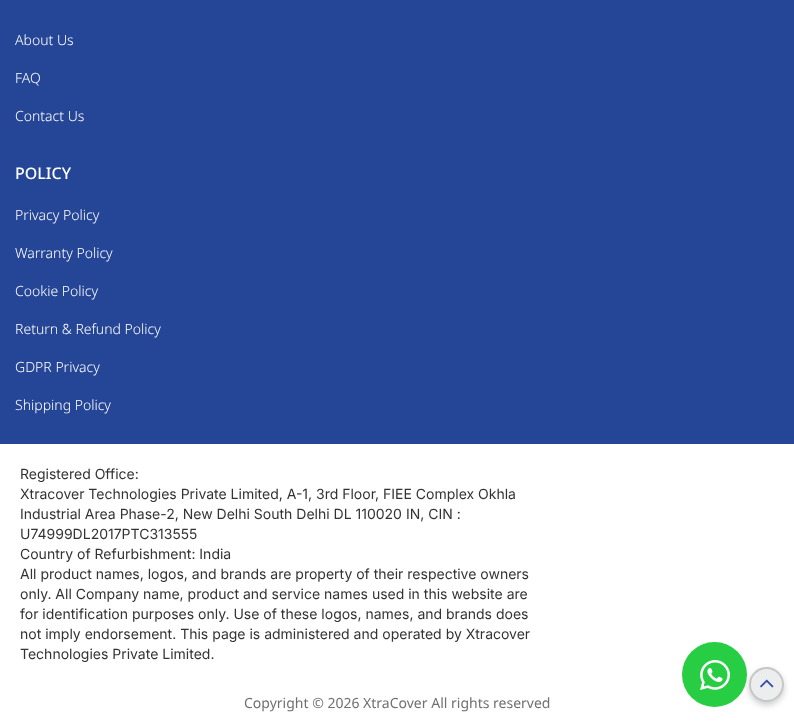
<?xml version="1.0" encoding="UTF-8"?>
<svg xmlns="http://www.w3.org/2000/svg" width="794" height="722">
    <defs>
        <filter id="blur1" x="-50%" y="-200%" width="200%" height="500%"><feGaussianBlur stdDeviation="3"/></filter>
    </defs>
    <rect width="100%" height="100%" fill="#FFFFFF"/>
    <rect x="0" y="0" width="794" height="444" fill="#254696"/>
    <text x="15" y="45" font-family="Noto Sans" font-size="14" font-weight="300" fill="#FFFFFF">About Us</text>
    <text x="15" y="83" font-family="Noto Sans" font-size="14" font-weight="300" fill="#FFFFFF">FAQ</text>
    <text x="15" y="121" font-family="Noto Sans" font-size="14" font-weight="300" fill="#FFFFFF">Contact Us</text>
    <text x="15" y="179" font-family="Noto Sans" font-size="16" font-weight="500" fill="#FFFFFF">POLICY</text>
    <text x="15" y="220" font-family="Noto Sans" font-size="14" font-weight="300" fill="#FFFFFF">Privacy Policy</text>
    <text x="15" y="258" font-family="Noto Sans" font-size="14" font-weight="300" fill="#FFFFFF">Warranty Policy</text>
    <text x="15" y="296" font-family="Noto Sans" font-size="14" font-weight="300" fill="#FFFFFF">Cookie Policy</text>
    <text x="15" y="334" font-family="Noto Sans" font-size="14" font-weight="300" fill="#FFFFFF">Return &amp; Refund Policy</text>
    <text x="15" y="372" font-family="Noto Sans" font-size="14" font-weight="300" fill="#FFFFFF">GDPR Privacy</text>
    <text x="15" y="410" font-family="Noto Sans" font-size="14" font-weight="300" fill="#FFFFFF">Shipping Policy</text>
    <text font-family="Inter" font-size="14" fill="#333333">
        <tspan x="20" y="479">Registered Office:</tspan>
        <tspan x="20" y="499">Xtracover Technologies Private Limited, A-1, 3rd Floor, FIEE Complex Okhla</tspan>
        <tspan x="20" y="519">Industrial Area Phase-2, New Delhi South Delhi DL 110020 IN, CIN :</tspan>
        <tspan x="20" y="539">U74999DL2017PTC313555</tspan>
        <tspan x="20" y="559">Country of Refurbishment: India</tspan>
        <tspan x="20" y="579">All product names, logos, and brands are property of their respective owners</tspan>
        <tspan x="20" y="599">only. All Company name, product and service names used in this website are</tspan>
        <tspan x="20" y="619">for identification purposes only. Use of these logos, names, and brands does</tspan>
        <tspan x="20" y="639">not imply endorsement. This page is administered and operated by Xtracover</tspan>
        <tspan x="20" y="659">Technologies Private Limited.</tspan>
    </text>
    <text x="244" y="708" font-family="Noto Sans" font-size="14" fill="#707070">Copyright © 2026 XtraCover All rights reserved</text>
    <rect x="749" y="670" width="35" height="35" rx="17.5" fill="#000000" fill-opacity="0.2" filter="url(#blur1)"/>
    <circle cx="714.5" cy="674.5" r="32.5" fill="#27CE43"/>
    <image x="700" y="660" width="30" height="30" href="img_01.png"/>
    <circle cx="766.5" cy="684.5" r="16.5" fill="#EBEDEE" stroke="#C7C7C7" stroke-width="2"/>
    <image x="760" y="679" width="14" height="9" href="img_02.png"/>
</svg>
